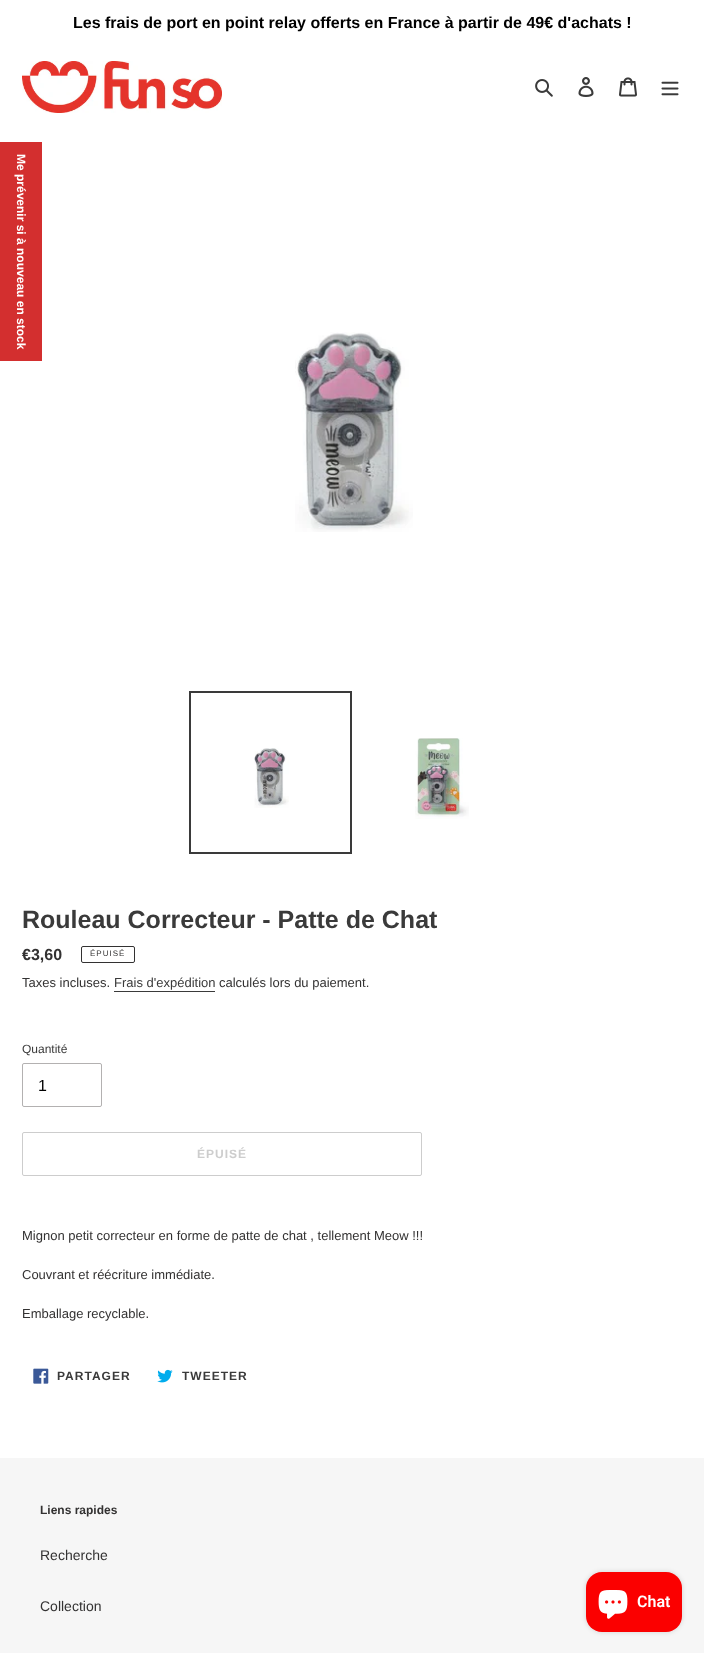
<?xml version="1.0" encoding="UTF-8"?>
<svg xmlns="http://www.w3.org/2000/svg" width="704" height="1653">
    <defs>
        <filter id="blur1" x="-50%" y="-200%" width="200%" height="500%"><feGaussianBlur stdDeviation="2.5"/></filter>
    </defs>
    <rect width="100%" height="100%" fill="#FFFFFF"/>
    <text x="73" y="28" font-family="Liberation Sans" font-size="16" font-weight="700" fill="#000000">Les frais de port en point relay offerts en France à partir de 49€ d'achats !</text>
    <image x="22" y="61" width="200" height="52" href="img_01.png"/>
    <image x="535" y="79" width="18" height="18" href="img_02.png"/>
    <image x="578" y="77" width="16" height="20" href="img_03.png"/>
    <image x="619" y="77" width="18" height="20" href="img_04.png"/>
    <image x="661" y="81" width="18" height="15" href="img_05.png"/>
    <rect x="0" y="142" width="42" height="219" fill="#D32F2F"/>
    <text x="17" y="154" transform="rotate(90 17 154)" font-family="Liberation Sans" font-size="12" font-weight="700" fill="#FFFFFF">Me prévenir si à nouveau en stock</text>
    <image x="295" y="332" width="118" height="200" href="img_06.png"/>
    <rect x="190" y="692" width="161" height="161" fill="none" stroke="#3A3A3A" stroke-width="2"/>
    <image x="254" y="748" width="35" height="60" href="img_07.png"/>
    <image x="415" y="738" width="54" height="81" href="img_08.png"/>
    <text x="22" y="928" font-family="Liberation Sans" font-size="25" font-weight="700" fill="#3A3A3A">Rouleau Correcteur - Patte de Chat</text>
    <text x="22" y="960" font-family="Liberation Sans" font-size="16" font-weight="700" fill="#333232">€3,60</text>
    <rect x="81.5" y="946.5" width="53" height="16" rx="1.5" fill="none" stroke="#333232"/>
    <text x="90" y="956" font-family="Liberation Sans" font-size="8" letter-spacing="1" fill="#333232">ÉPUISÉ</text>
    <text x="22" y="987" font-family="Liberation Sans" font-size="13" fill="#333232">Taxes incluses.</text>
    <text x="114" y="987" font-family="Liberation Sans" font-size="13" fill="#3A3A3A">Frais d'expédition</text>
    <rect x="114" y="991" width="101" height="1" fill="#3A3A3A"/>
    <text x="219" y="987" font-family="Liberation Sans" font-size="13" fill="#333232">calculés lors du paiement.</text>
    <text x="22" y="1053" font-family="Liberation Sans" font-size="12" fill="#3A3A3A">Quantité</text>
    <rect x="22.5" y="1063.5" width="79" height="43" rx="1.5" fill="none" stroke="#B3B1B1"/>
    <text x="38" y="1091" font-family="Liberation Sans" font-size="16" fill="#000000">1</text>
    <rect x="22.5" y="1132.5" width="399" height="43" rx="1.5" fill="none" stroke="#CDCDCD"/>
    <text x="197" y="1158" font-family="Liberation Sans" font-size="12" font-weight="700" letter-spacing="1" fill="#CDCDCD">ÉPUISÉ</text>
    <text x="22" y="1240" font-family="Liberation Sans" font-size="13" fill="#333232">Mignon petit correcteur en forme de patte de chat , tellement Meow !!!</text>
    <text x="22" y="1279" font-family="Liberation Sans" font-size="13" fill="#333232">Couvrant et réécriture immédiate.</text>
    <text x="22" y="1318" font-family="Liberation Sans" font-size="13" fill="#333232">Emballage recyclable.</text>
    <image x="33" y="1368" width="16" height="16" href="img_09.png"/>
    <text x="57" y="1380" font-family="Liberation Sans" font-size="12" font-weight="700" letter-spacing="1" fill="#3A3A3A">PARTAGER</text>
    <image x="157" y="1369" width="16" height="14" href="img_10.png"/>
    <text x="182" y="1380" font-family="Liberation Sans" font-size="12" font-weight="700" letter-spacing="1" fill="#3A3A3A">TWEETER</text>
    <rect x="0" y="1458" width="704" height="195" fill="#F6F6F6"/>
    <text x="40" y="1514" font-family="Liberation Sans" font-size="12" font-weight="700" fill="#333232">Liens rapides</text>
    <text x="40" y="1560" font-family="Liberation Sans" font-size="14" fill="#333232">Recherche</text>
    <text x="40" y="1611" font-family="Liberation Sans" font-size="14" fill="#333232">Collection</text>
    <rect x="586" y="1572" width="96" height="60" rx="16" fill="#000000" fill-opacity="0.15" filter="url(#blur1)"/>
    <rect x="586" y="1572" width="96" height="60" rx="16" fill="#FB0000"/>
    <image x="598" y="1590" width="30" height="29" href="img_11.png"/>
    <text x="637" y="1607" font-family="Roboto" font-size="16" font-weight="600" fill="#FFFFFF">Chat</text>
</svg>
